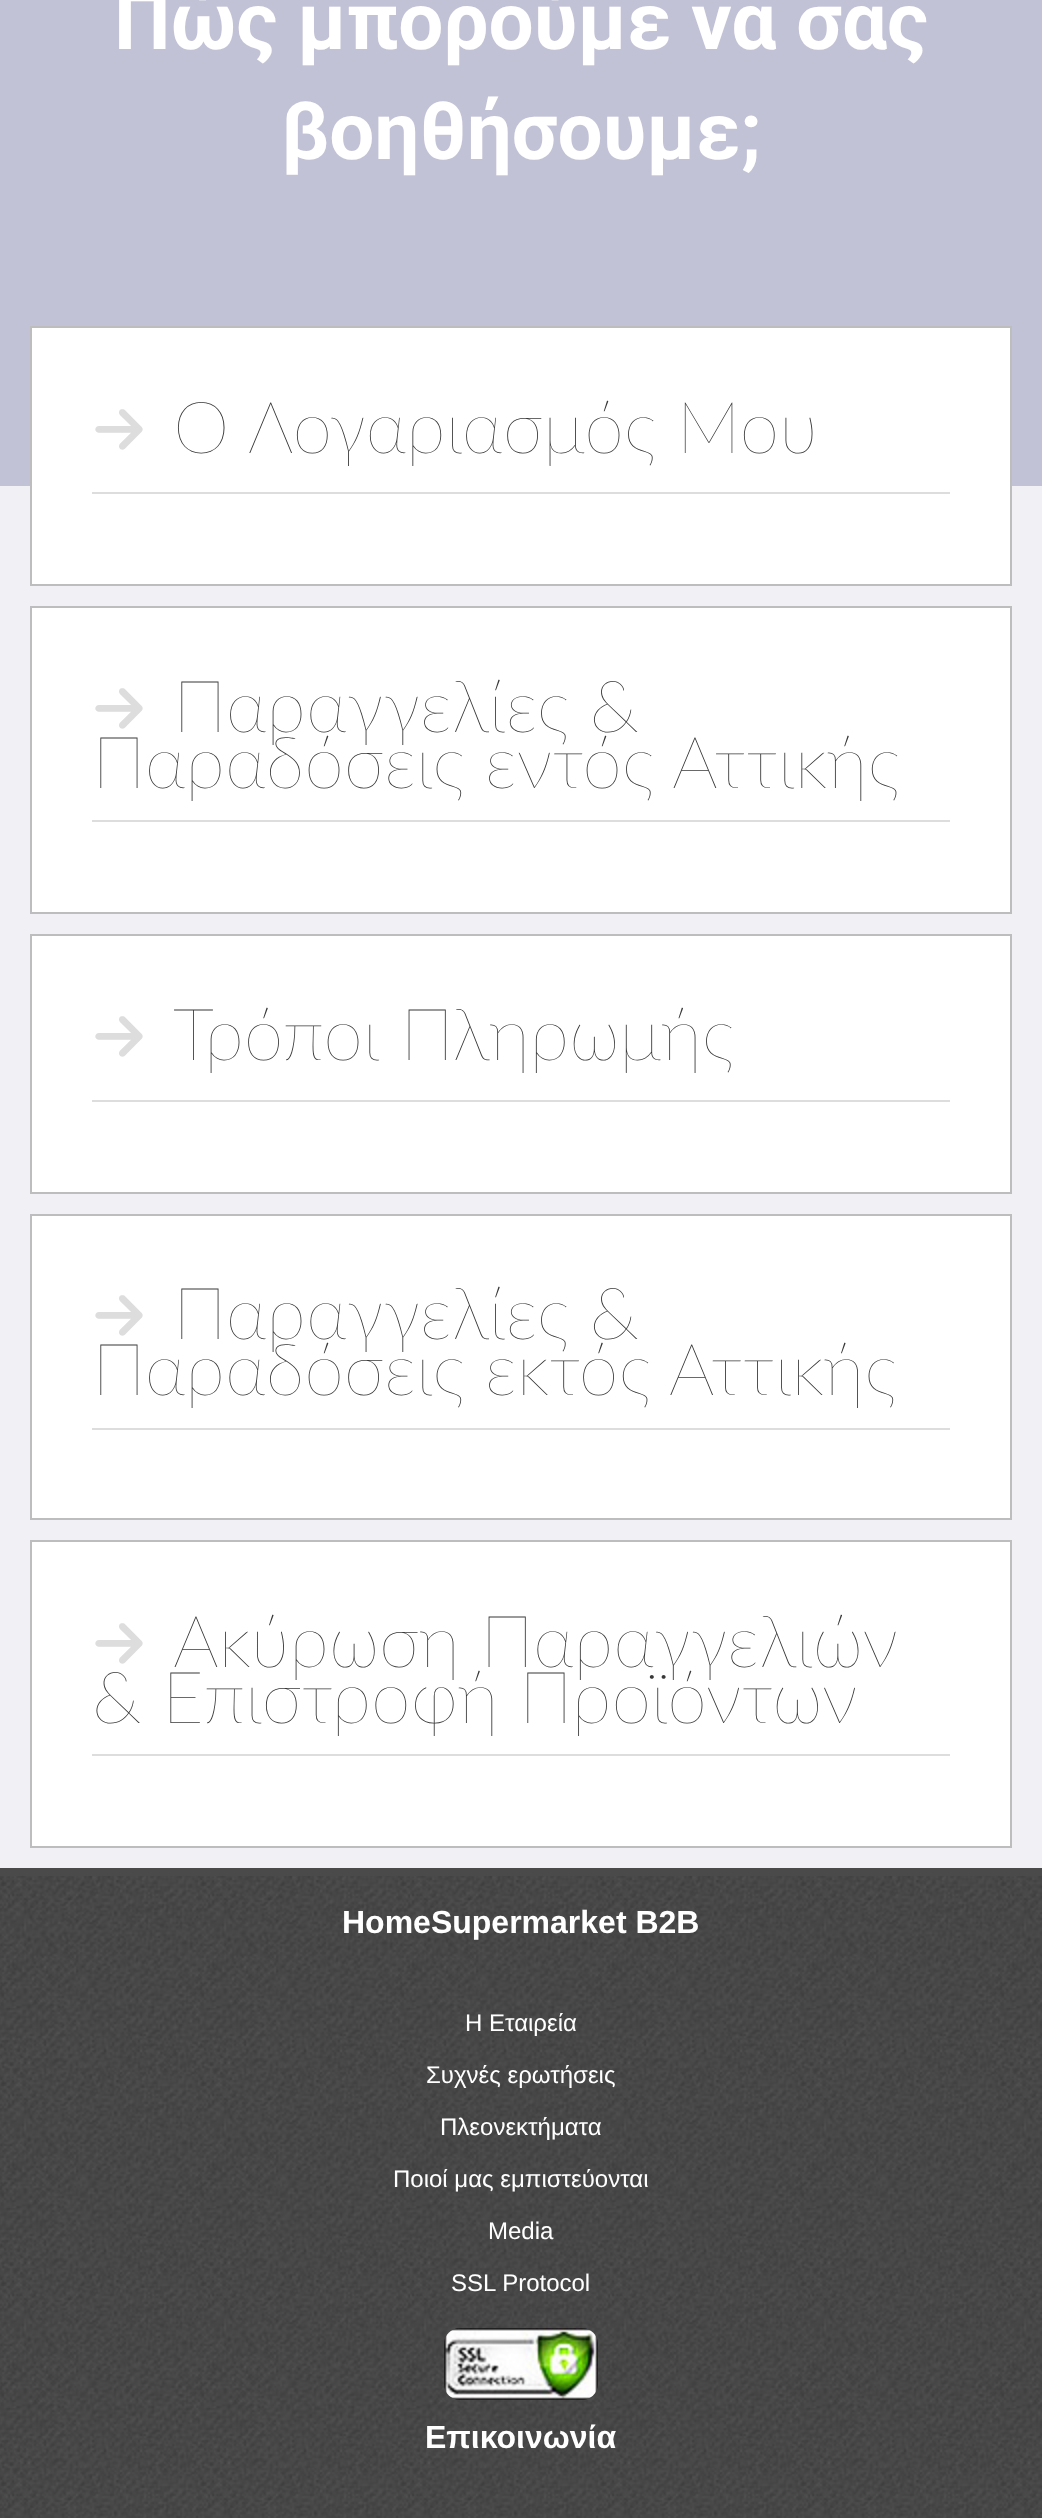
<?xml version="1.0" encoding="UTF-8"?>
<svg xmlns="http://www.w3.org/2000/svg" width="1042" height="2518">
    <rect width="100%" height="100%" fill="#C2C2D6"/>
    <text x="114" y="49" font-family="Roboto" font-size="80" font-weight="700" fill="#FFFFFF">Πώς μπορούμε να σας</text>
    <text x="281" y="159" font-family="Roboto" font-size="80" font-weight="700" fill="#FFFFFF">βοηθήσουμε;</text>
    <rect x="0" y="486" width="1042" height="1382" fill="#F0F0F5"/>
    <rect x="32" y="328" width="978" height="1518" fill="#FFFFFF"/>
    <rect x="31" y="327" width="980" height="258" fill="none" stroke="#BDBDBD" stroke-width="2"/>
    <rect x="92" y="492" width="858" height="2" fill="#DDDDDD"/>
    <text x="92" y="453" font-family="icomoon" font-size="54" fill="#DDDDDD">6</text>
    <text x="173" y="453" font-family="Lato" font-size="72" font-weight="200" fill="#383838">Ο Λογαριασμός Μου</text>
    <rect x="32" y="586" width="978" height="20" fill="#F0F0F5"/>
    <rect x="31" y="607" width="980" height="306" fill="none" stroke="#BDBDBD" stroke-width="2"/>
    <rect x="92" y="820" width="858" height="2" fill="#DDDDDD"/>
    <text x="92" y="732" font-family="icomoon" font-size="54" fill="#DDDDDD">6</text>
    <text x="173" y="732" font-family="Lato" font-size="72" font-weight="200" fill="#383838">Παραγγελίες &amp;</text>
    <text x="92" y="788" font-family="Lato" font-size="72" font-weight="200" fill="#383838">Παραδόσεις εντός Αττικής</text>
    <rect x="32" y="914" width="978" height="20" fill="#F0F0F5"/>
    <rect x="31" y="935" width="980" height="258" fill="none" stroke="#BDBDBD" stroke-width="2"/>
    <rect x="92" y="1100" width="858" height="2" fill="#DDDDDD"/>
    <text x="92" y="1060" font-family="icomoon" font-size="54" fill="#DDDDDD">6</text>
    <text x="173" y="1060" font-family="Lato" font-size="72" font-weight="200" fill="#383838">Τρόποι Πληρωμής</text>
    <rect x="32" y="1194" width="978" height="20" fill="#F0F0F5"/>
    <rect x="31" y="1215" width="980" height="304" fill="none" stroke="#BDBDBD" stroke-width="2"/>
    <rect x="92" y="1428" width="858" height="2" fill="#DDDDDD"/>
    <text x="92" y="1339" font-family="icomoon" font-size="54" fill="#DDDDDD">6</text>
    <text x="173" y="1339" font-family="Lato" font-size="72" font-weight="200" fill="#383838">Παραγγελίες &amp;</text>
    <text x="92" y="1395" font-family="Lato" font-size="72" font-weight="200" fill="#383838">Παραδόσεις εκτός Αττικής</text>
    <rect x="32" y="1520" width="978" height="20" fill="#F0F0F5"/>
    <rect x="31" y="1541" width="980" height="306" fill="none" stroke="#BDBDBD" stroke-width="2"/>
    <rect x="92" y="1754" width="858" height="2" fill="#DDDDDD"/>
    <text x="92" y="1667" font-family="icomoon" font-size="54" fill="#DDDDDD">6</text>
    <text x="173" y="1667" font-family="Lato" font-size="72" font-weight="200" fill="#383838">Ακύρωση Παραγγελιών</text>
    <text x="92" y="1723" font-family="Lato" font-size="72" font-weight="200" fill="#383838">&amp; Επιστροφή Προϊόντων</text>
    <rect x="0" y="1868" width="1042" height="8" fill="#4A4A4A"/>
    <image x="0" y="1876" width="1042" height="642" href="img_01.png"/>
    <text x="342" y="1933" font-family="Liberation Sans" font-size="32" font-weight="700" fill="#FFFFFF">HomeSupermarket B2B</text>
    <text x="465" y="2031" font-family="Liberation Sans" font-size="24" fill="#FFFFFF">Η Εταιρεία</text>
    <text x="426" y="2083" font-family="Liberation Sans" font-size="24" fill="#FFFFFF">Συχνές ερωτήσεις</text>
    <text x="440" y="2135" font-family="Liberation Sans" font-size="24" fill="#FFFFFF">Πλεονεκτήματα</text>
    <text x="393" y="2187" font-family="Liberation Sans" font-size="24" fill="#FFFFFF">Ποιοί μας εμπιστεύονται</text>
    <text x="488" y="2239" font-family="Liberation Sans" font-size="24" fill="#FFFFFF">Media</text>
    <text x="451" y="2291" font-family="Liberation Sans" font-size="24" fill="#FFFFFF">SSL Protocol</text>
    <image x="444" y="2328" width="154" height="72" href="img_02.png"/>
    <text x="425" y="2448" font-family="Liberation Sans" font-size="32" font-weight="700" fill="#FFFFFF">Επικοινωνία</text>
</svg>
